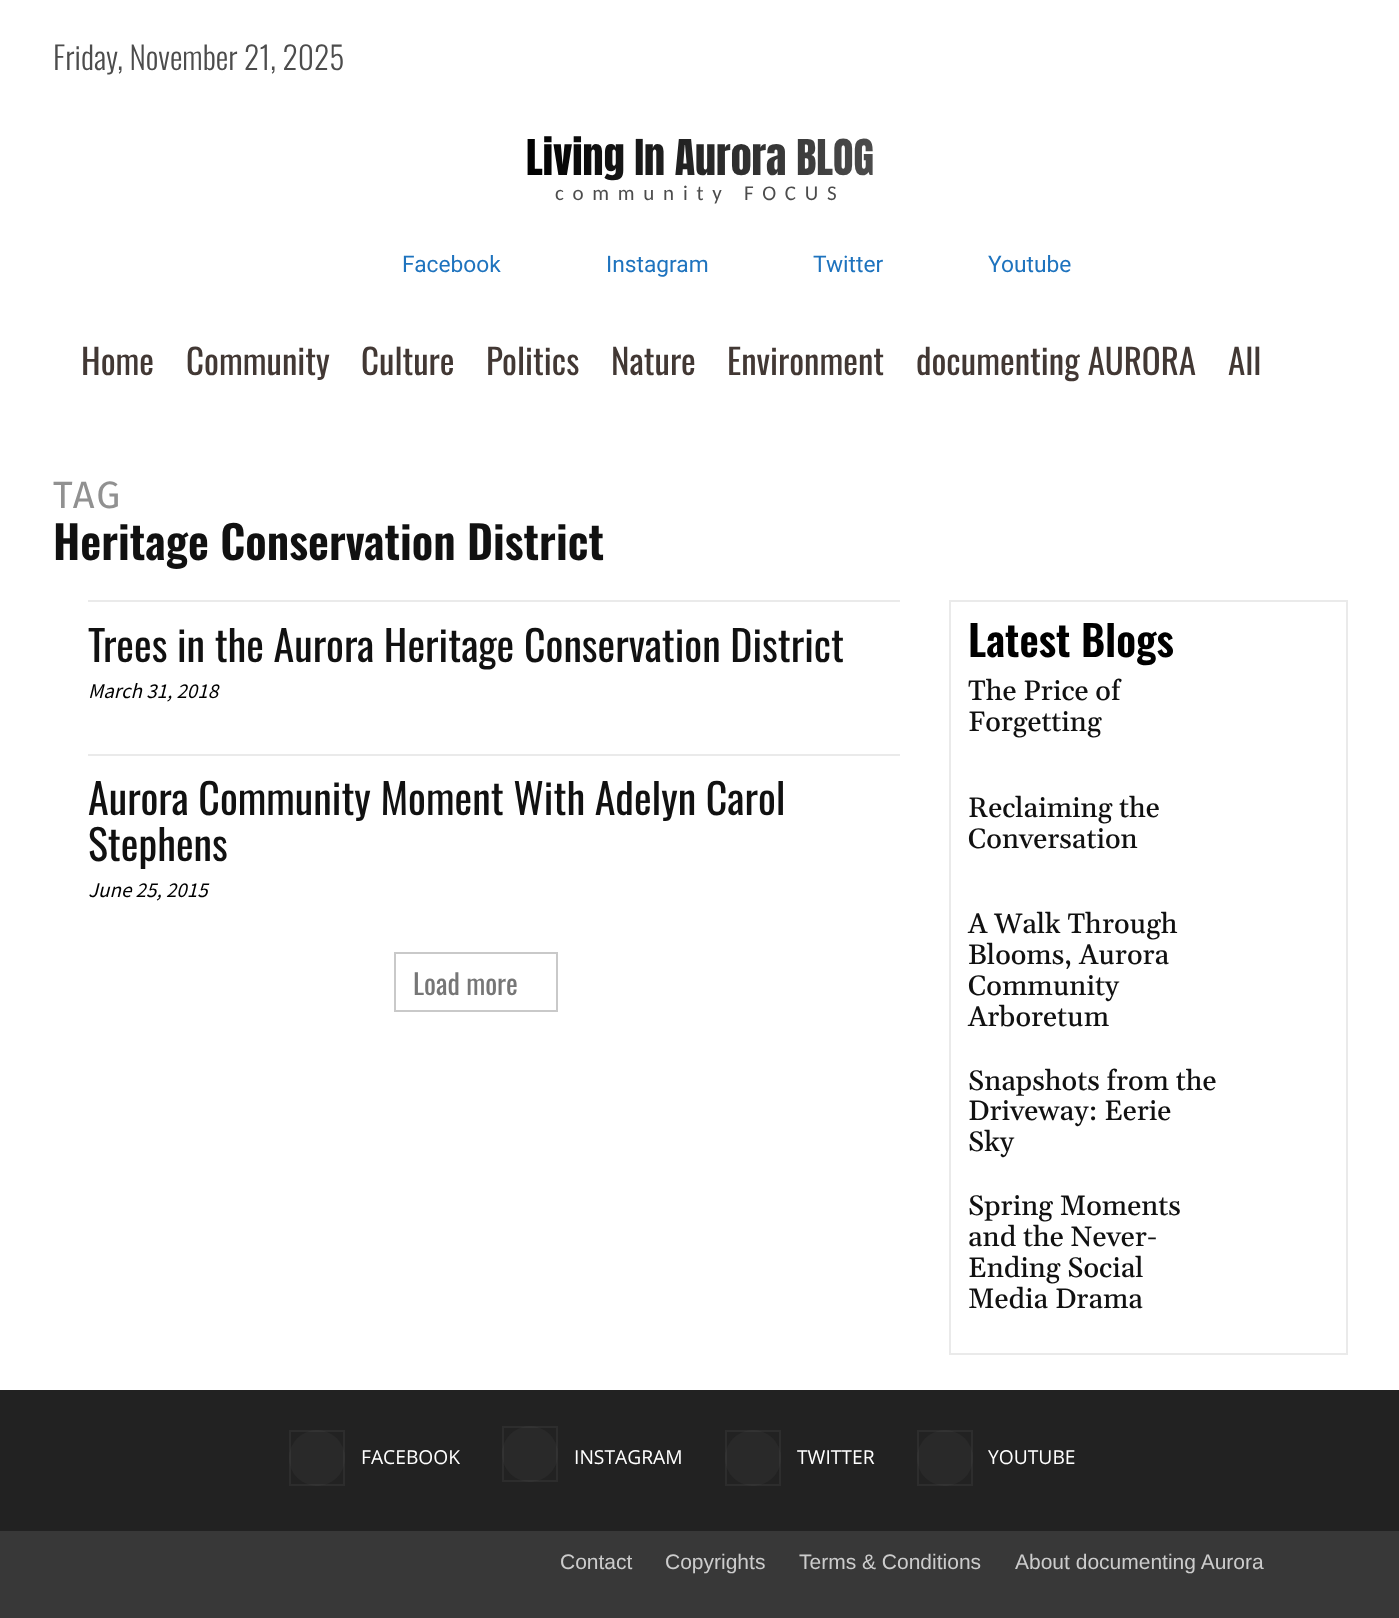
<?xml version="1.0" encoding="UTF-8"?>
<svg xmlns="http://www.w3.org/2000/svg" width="1399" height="1618">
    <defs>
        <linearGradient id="g1" gradientUnits="userSpaceOnUse" x1="874" y1="159" x2="526" y2="159"><stop offset="0" stop-color="#4C4C4C"/><stop offset="1" stop-color="#000000"/></linearGradient>
    </defs>
    <rect width="100%" height="100%" fill="#FFFFFF"/>
    <text x="53" y="70" font-family="Oswald" font-size="31.5" font-weight="300" fill="#4C4C4C">Friday, November 21, 2025</text>
    <text x="526" y="175" font-family="Anton" font-size="42" fill="url(#g1)">Living In Aurora BLOG</text>
    <text x="555" y="200" font-family="Carlito" font-size="21" letter-spacing="8.75" fill="#4C4C4C">community FOCUS</text>
    <text x="402" y="272" font-family="Roboto" font-size="22.75" fill="#1E73BE">Facebook</text>
    <text x="606" y="272" font-family="Roboto" font-size="22.75" fill="#1E73BE">Instagram</text>
    <text x="813" y="272" font-family="Roboto" font-size="22.75" fill="#1E73BE">Twitter</text>
    <text x="988" y="272" font-family="Roboto" font-size="22.75" fill="#1E73BE">Youtube</text>
    <text x="81" y="375" font-family="Oswald" font-size="35" fill="#423834">Home</text>
    <text x="186" y="375" font-family="Oswald" font-size="35" fill="#423834">Community</text>
    <text x="361" y="375" font-family="Oswald" font-size="35" fill="#423834">Culture</text>
    <text x="486" y="375" font-family="Oswald" font-size="35" fill="#423834">Politics</text>
    <text x="611" y="375" font-family="Oswald" font-size="35" fill="#423834">Nature</text>
    <text x="727" y="375" font-family="Oswald" font-size="35" fill="#423834">Environment</text>
    <text x="916" y="375" font-family="Oswald" font-size="35" fill="#423834">documenting AURORA</text>
    <text x="1228" y="375" font-family="Oswald" font-size="35" fill="#423834">All</text>
    <text x="53" y="508" font-family="Fira Sans" font-size="38" letter-spacing="2" fill="#919191">TAG</text>
    <text x="53" y="560" font-family="Oswald" font-size="45.5" font-weight="600" fill="#111111">Heritage Conservation District</text>
    <rect x="88" y="600" width="812" height="2" fill="#EAEAEA"/>
    <text x="88" y="662" font-family="Oswald" font-size="42" fill="#111111">Trees in the Aurora Heritage Conservation District</text>
    <text x="88" y="698" font-family="Source Sans Pro" font-size="21" font-style="italic" fill="#000000">March 31, 2018</text>
    <rect x="88" y="754" width="812" height="2" fill="#EAEAEA"/>
    <text font-family="Oswald" font-size="42" fill="#111111">
        <tspan x="88" y="815">Aurora Community Moment With Adelyn Carol</tspan>
        <tspan x="88" y="861">Stephens</tspan>
    </text>
    <text x="88" y="897" font-family="Source Sans Pro" font-size="21" font-style="italic" fill="#000000">June 25, 2015</text>
    <rect x="395" y="953" width="162" height="58" fill="none" stroke="#C9C9C9" stroke-width="2"/>
    <text x="413" y="995" font-family="Oswald" font-size="28" fill="#767676">Load more</text>
    <rect x="950" y="601" width="397" height="753" fill="none" stroke="#EAEAEA" stroke-width="2"/>
    <text x="968" y="657" font-family="Oswald" font-size="42" font-weight="600" fill="#000000">Latest Blogs</text>
    <text font-family="Gelasio" font-size="28" font-weight="500" fill="#111111">
        <tspan x="968" y="700">The Price of</tspan>
        <tspan x="968" y="731">Forgetting</tspan>
    </text>
    <text font-family="Gelasio" font-size="28" font-weight="500" fill="#111111">
        <tspan x="968" y="817">Reclaiming the</tspan>
        <tspan x="968" y="848">Conversation</tspan>
    </text>
    <text font-family="Gelasio" font-size="28" font-weight="500" fill="#111111">
        <tspan x="968" y="933">A Walk Through</tspan>
        <tspan x="968" y="964">Blooms, Aurora</tspan>
        <tspan x="968" y="995">Community</tspan>
        <tspan x="968" y="1026">Arboretum</tspan>
    </text>
    <text font-family="Gelasio" font-size="28" font-weight="500" fill="#111111">
        <tspan x="968" y="1090">Snapshots from the</tspan>
        <tspan x="968" y="1120">Driveway: Eerie</tspan>
        <tspan x="968" y="1151">Sky</tspan>
    </text>
    <text font-family="Gelasio" font-size="28" font-weight="500" fill="#111111">
        <tspan x="968" y="1215">Spring Moments</tspan>
        <tspan x="968" y="1246">and the Never-</tspan>
        <tspan x="968" y="1277">Ending Social</tspan>
        <tspan x="968" y="1308">Media Drama</tspan>
    </text>
    <rect x="0" y="1390" width="1399" height="141" fill="#222222"/>
    <circle cx="317" cy="1458" r="28" fill="#292929"/>
    <rect x="290" y="1431" width="54" height="54" fill="none" stroke="#FFFFFF" stroke-opacity="0.05" stroke-width="2"/>
    <text x="361" y="1464" font-family="Open Sans" font-size="19.25" fill="#FFFFFF">FACEBOOK</text>
    <circle cx="530" cy="1454" r="28" fill="#292929"/>
    <rect x="503" y="1427" width="54" height="54" fill="none" stroke="#FFFFFF" stroke-opacity="0.05" stroke-width="2"/>
    <text x="574" y="1464" font-family="Open Sans" font-size="19.25" fill="#FFFFFF">INSTAGRAM</text>
    <circle cx="753" cy="1458" r="28" fill="#292929"/>
    <rect x="726" y="1431" width="54" height="54" fill="none" stroke="#FFFFFF" stroke-opacity="0.05" stroke-width="2"/>
    <text x="797" y="1464" font-family="Open Sans" font-size="19.25" fill="#FFFFFF">TWITTER</text>
    <circle cx="945" cy="1458" r="28" fill="#292929"/>
    <rect x="918" y="1431" width="54" height="54" fill="none" stroke="#FFFFFF" stroke-opacity="0.05" stroke-width="2"/>
    <text x="988" y="1464" font-family="Open Sans" font-size="19.25" fill="#FFFFFF">YOUTUBE</text>
    <rect x="0" y="1531" width="1399" height="87" fill="#383838"/>
    <text x="560" y="1569" font-family="Liberation Sans" font-size="21" fill="#CCCCCC">Contact</text>
    <text x="665" y="1569" font-family="Liberation Sans" font-size="21" fill="#CCCCCC">Copyrights</text>
    <text x="799" y="1569" font-family="Liberation Sans" font-size="21" fill="#CCCCCC">Terms &amp; Conditions</text>
    <text x="1015" y="1569" font-family="Liberation Sans" font-size="21" fill="#CCCCCC">About documenting Aurora</text>
</svg>
